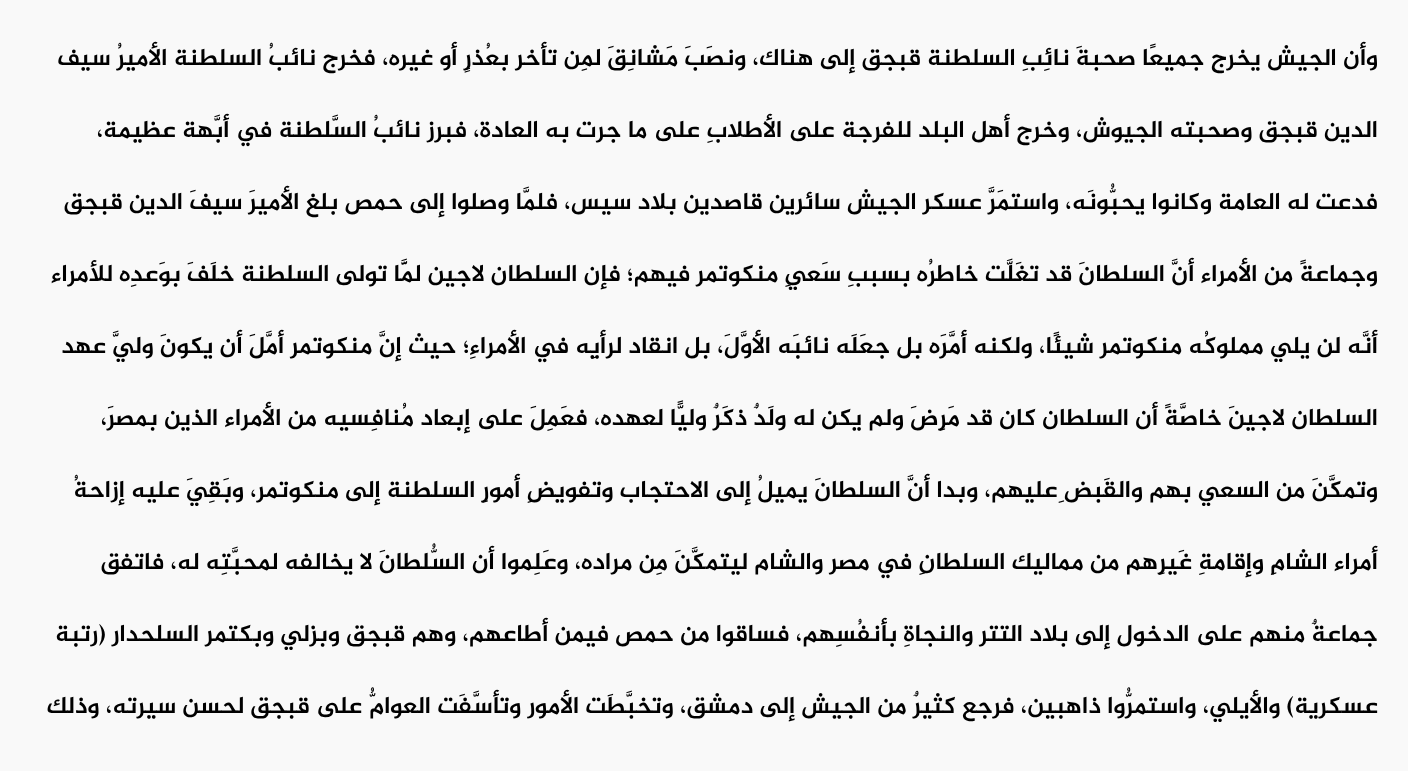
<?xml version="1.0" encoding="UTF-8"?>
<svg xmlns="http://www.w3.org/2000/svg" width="1408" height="771">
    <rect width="100%" height="100%" fill="#F9F9F9"/>
    <text x="1378" y="65" font-family="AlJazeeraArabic" font-size="24" font-weight="700" direction="rtl" fill="#000000">وأن الجيش يخرج جميعًا صحبةَ نائِبِ السلطنة قبجق إلى هناك، ونصَبَ مَشانِقَ لِمن تأخر بعُذرٍ أو غيره، فخرج نائبُ السلطنة الأميرُ سيف</text>
    <text x="1378" y="137" font-family="AlJazeeraArabic" font-size="24" font-weight="700" direction="rtl" fill="#000000">الدين قبجق وصحبته الجيوش، وخرج أهل البلد للفرجة على الأطلابِ على ما جرت به العادة، فبرز نائبُ السَّلطنة في أبَّهة عظيمة،</text>
    <text x="1378" y="209" font-family="AlJazeeraArabic" font-size="24" font-weight="700" direction="rtl" fill="#000000">فدعت له العامة وكانوا يحبُّونَه، واستمَرَّ عسكر الجيش سائرين قاصدين بلاد سيس، فلمَّا وصلوا إلى حمص بلغ الأميرَ سيفَ الدين قبجق</text>
    <text x="1378" y="281" font-family="AlJazeeraArabic" font-size="24" font-weight="700" direction="rtl" fill="#000000">وجماعةً من الأمراء أنَّ السلطانَ قد تغَلَّت خاطرُه بسببِ سَعيِ منكوتمر فيهم؛ فإن السلطان لاجين لَمَّا تولى السلطنة خلَفَ بوَعدِه للأمراء</text>
    <text x="1378" y="353" font-family="AlJazeeraArabic" font-size="24" font-weight="700" direction="rtl" fill="#000000">أنَّه لن يلي مملوكُه منكوتمر شيئًا، ولكنه أمَّرَه بل جعَلَه نائبَه الأوَّلَ، بل انقاد لرأيِه في الأمراءِ؛ حيث إنَّ منكوتمر أمَّلَ أن يكونَ وليَّ عهد</text>
    <text x="1378" y="425" font-family="AlJazeeraArabic" font-size="24" font-weight="700" direction="rtl" fill="#000000">السلطان لاجينَ خاصَّةً أن السلطان كان قد مَرِضَ ولم يكن له ولَدٌ ذكَرٌ وليًّا لعهده، فعَمِلَ على إبعاد مُنافِسيه من الأمراء الذين بمصرَ،</text>
    <text x="1378" y="497" font-family="AlJazeeraArabic" font-size="24" font-weight="700" direction="rtl" fill="#000000">وتمكَّنَ من السعي بهم والقَبض ِعليهم، وبدا أنَّ السلطانَ يميلُ إلى الاحتجاب وتفويضِ أمورِ السلطنة إلى منكوتمر، وبَقِيَ عليه إزاحةُ</text>
    <text x="1378" y="569" font-family="AlJazeeraArabic" font-size="24" font-weight="700" direction="rtl" fill="#000000">أمراء الشامِ وإقامةِ غَيرِهم من مماليك السلطانِ في مصر والشام ليتمكَّنَ مِن مراده، وعَلِموا أن السُّلطانَ لا يخالفه لمحبَّتِه له، فاتفق</text>
    <text x="1378" y="641" font-family="AlJazeeraArabic" font-size="24" font-weight="700" direction="rtl" fill="#000000">جماعةٌ منهم على الدخول إلى بلاد التتر والنجاةِ بأنفُسِهم، فساقوا من حمص فيمن أطاعهم، وهم قبجق وبزلي وبكتمر السلحدار (رتبة</text>
    <text x="1378" y="713" font-family="AlJazeeraArabic" font-size="24" font-weight="700" direction="rtl" fill="#000000">عسكرية) والأيلي، واستمرُّوا ذاهبين، فرجع كثيرٌ من الجيش إلى دمشق، وتخبَّطَت الأمور وتأسَّفَت العوامُّ على قبجق لحسن سيرته، وذلك</text>
</svg>
